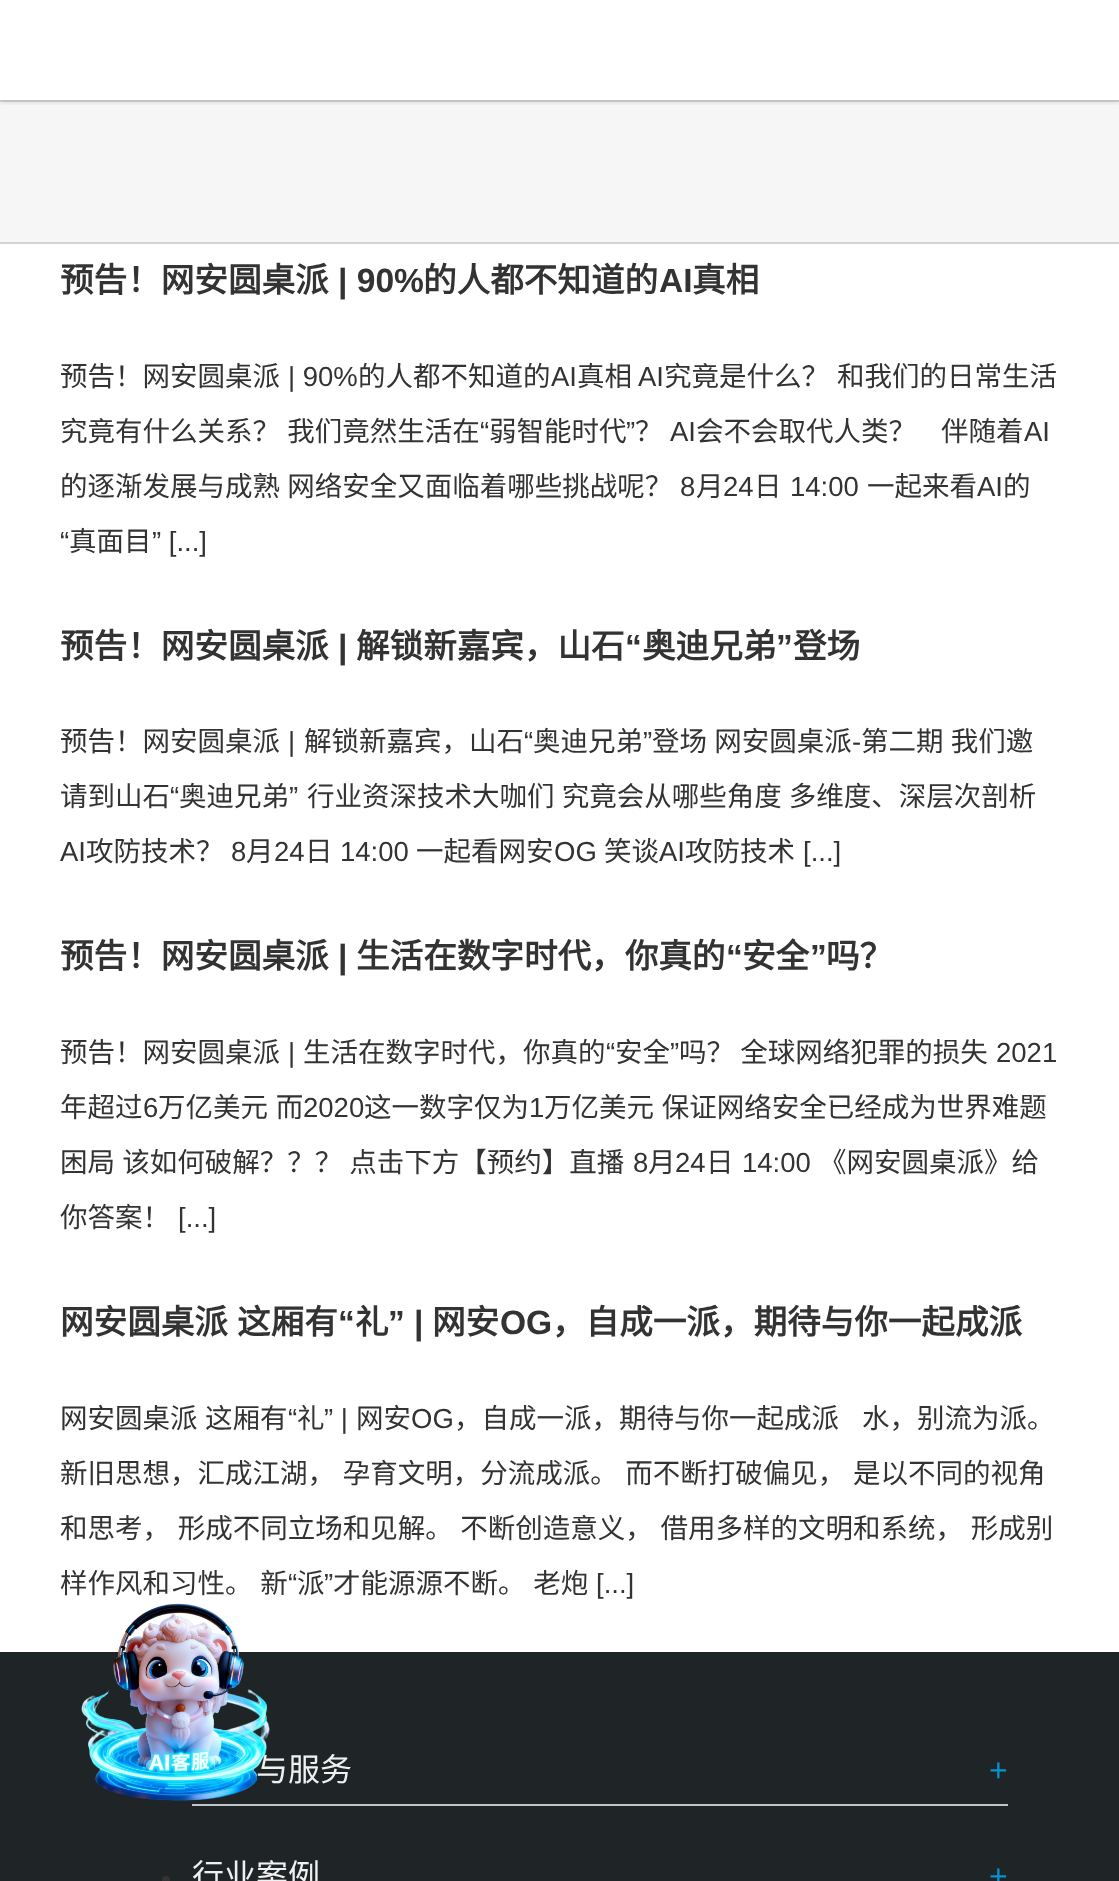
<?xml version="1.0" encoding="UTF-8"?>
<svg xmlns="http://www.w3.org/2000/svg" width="1119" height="1881">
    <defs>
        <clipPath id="clip1"><rect x="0" y="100" width="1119" height="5"/></clipPath>
        <filter id="blur1" x="-50%" y="-200%" width="200%" height="500%"><feGaussianBlur stdDeviation="3"/></filter>
    </defs>
    <rect width="100%" height="100%" fill="#FFFFFF"/>
    <rect x="0" y="102" width="1119" height="140" fill="#F6F6F6"/>
    <rect x="0" y="100" width="1119" height="2" fill="#D2D3D4"/>
    <g clip-path="url(#clip1)">
        <rect x="0" y="2" width="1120" height="100" fill="#000000" fill-opacity="0.12" filter="url(#blur1)"/>
    </g>
    <rect x="0" y="242" width="1119" height="2" fill="#D2D3D4"/>
    <text x="60" y="292" font-family="Noto Sans CJK SC" font-size="33.6" font-weight="700" fill="#333333">预告！网安圆桌派</text>
    <text x="338" y="292" font-family="Liberation Sans" font-size="33.6" font-weight="700" fill="#333333">| 90%</text>
    <text x="423" y="292" font-family="Noto Sans CJK SC" font-size="33.6" font-weight="700" fill="#333333">的人都不知道的</text>
    <text x="659" y="292" font-family="Liberation Sans" font-size="33.6" font-weight="700" fill="#333333">AI</text>
    <text x="692" y="292" font-family="Noto Sans CJK SC" font-size="33.6" font-weight="700" fill="#333333">真相</text>
    <text x="60" y="386" font-family="Noto Sans CJK SC" font-size="27.5" fill="#333333">预告！网安圆桌派</text>
    <text x="288" y="386" font-family="Liberation Sans" font-size="27.5" fill="#333333">| 90%</text>
    <text x="358" y="386" font-family="Noto Sans CJK SC" font-size="27.5" fill="#333333">的人都不知道的</text>
    <text x="551" y="386" font-family="Liberation Sans" font-size="27.5" fill="#333333">AI</text>
    <text x="577" y="386" font-family="Noto Sans CJK SC" font-size="27.5" fill="#333333">真相</text>
    <text x="638" y="386" font-family="Liberation Sans" font-size="27.5" fill="#333333">AI</text>
    <text x="664" y="386" font-family="Noto Sans CJK SC" font-size="27.5" fill="#333333">究竟是什么？</text>
    <text x="837" y="386" font-family="Noto Sans CJK SC" font-size="27.5" fill="#333333">和我们的日常生活</text>
    <text x="60" y="441" word-spacing="1" font-family="Noto Sans CJK SC" font-size="27.5" fill="#333333">究竟有什么关系？ 我们竟然生活在</text>
    <text x="480" y="441" font-family="Liberation Sans" font-size="27.5" fill="#333333">“</text>
    <text x="489" y="441" font-family="Noto Sans CJK SC" font-size="27.5" fill="#333333">弱智能时代</text>
    <text x="626" y="441" font-family="Liberation Sans" font-size="27.5" fill="#333333">”</text>
    <text x="635" y="441" font-family="Noto Sans CJK SC" font-size="27.5" fill="#333333">？</text>
    <text x="670" y="441" font-family="Liberation Sans" font-size="27.5" fill="#333333">AI</text>
    <text x="696" y="441" font-family="Noto Sans CJK SC" font-size="27.5" fill="#333333">会不会取代人类？</text>
    <text x="941" y="441" font-family="Noto Sans CJK SC" font-size="27.5" fill="#333333">伴随着</text>
    <text x="1024" y="441" font-family="Liberation Sans" font-size="27.5" fill="#333333">AI</text>
    <text x="60" y="496" word-spacing="1" font-family="Noto Sans CJK SC" font-size="27.5" fill="#333333">的逐渐发展与成熟 网络安全又面临着哪些挑战呢？</text>
    <text x="680" y="496" font-family="Liberation Sans" font-size="27.5" fill="#333333">8</text>
    <text x="696" y="496" font-family="Noto Sans CJK SC" font-size="27.5" fill="#333333">月</text>
    <text x="723" y="496" font-family="Liberation Sans" font-size="27.5" fill="#333333">24</text>
    <text x="754" y="496" font-family="Noto Sans CJK SC" font-size="27.5" fill="#333333">日</text>
    <text x="790" y="496" font-family="Liberation Sans" font-size="27.5" fill="#333333">14:00</text>
    <text x="867" y="496" font-family="Noto Sans CJK SC" font-size="27.5" fill="#333333">一起来看</text>
    <text x="977" y="496" font-family="Liberation Sans" font-size="27.5" fill="#333333">AI</text>
    <text x="1003" y="496" font-family="Noto Sans CJK SC" font-size="27.5" fill="#333333">的</text>
    <text x="60" y="551" font-family="Liberation Sans" font-size="27.5" fill="#333333">“</text>
    <text x="69" y="551" font-family="Noto Sans CJK SC" font-size="27.5" fill="#333333">真面目</text>
    <text x="152" y="551" font-family="Liberation Sans" font-size="27.5" fill="#333333">” [...]</text>
    <text x="60" y="658" font-family="Noto Sans CJK SC" font-size="33.6" font-weight="700" fill="#333333">预告！网安圆桌派</text>
    <text x="338" y="658" font-family="Liberation Sans" font-size="33.6" font-weight="700" fill="#333333">|</text>
    <text x="356" y="658" font-family="Noto Sans CJK SC" font-size="33.6" font-weight="700" fill="#333333">解锁新嘉宾，山石</text>
    <text x="625" y="658" font-family="Liberation Sans" font-size="33.6" font-weight="700" fill="#333333">“</text>
    <text x="642" y="658" font-family="Noto Sans CJK SC" font-size="33.6" font-weight="700" fill="#333333">奥迪兄弟</text>
    <text x="776" y="658" font-family="Liberation Sans" font-size="33.6" font-weight="700" fill="#333333">”</text>
    <text x="793" y="658" font-family="Noto Sans CJK SC" font-size="33.6" font-weight="700" fill="#333333">登场</text>
    <text x="60" y="751" font-family="Noto Sans CJK SC" font-size="27.5" fill="#333333">预告！网安圆桌派</text>
    <text x="288" y="751" font-family="Liberation Sans" font-size="27.5" fill="#333333">|</text>
    <text x="304" y="751" font-family="Noto Sans CJK SC" font-size="27.5" fill="#333333">解锁新嘉宾，山石</text>
    <text x="524" y="751" font-family="Liberation Sans" font-size="27.5" fill="#333333">“</text>
    <text x="533" y="751" font-family="Noto Sans CJK SC" font-size="27.5" fill="#333333">奥迪兄弟</text>
    <text x="643" y="751" font-family="Liberation Sans" font-size="27.5" fill="#333333">”</text>
    <text x="652" y="751" word-spacing="1" font-family="Noto Sans CJK SC" font-size="27.5" fill="#333333">登场 网安圆桌派</text>
    <text x="861" y="751" word-spacing="1" font-family="Noto Sans CJK SC" font-size="27.5" fill="#333333">第二期 我们邀</text>
    <text x="852" y="751" font-family="Liberation Sans" font-size="27.5" fill="#333333">-</text>
    <text x="60" y="806" font-family="Noto Sans CJK SC" font-size="27.5" fill="#333333">请到山石</text>
    <text x="170" y="806" font-family="Liberation Sans" font-size="27.5" fill="#333333">“</text>
    <text x="179" y="806" font-family="Noto Sans CJK SC" font-size="27.5" fill="#333333">奥迪兄弟</text>
    <text x="289" y="806" font-family="Liberation Sans" font-size="27.5" fill="#333333">”</text>
    <text x="307" y="806" word-spacing="1" font-family="Noto Sans CJK SC" font-size="27.5" fill="#333333">行业资深技术大咖们 究竟会从哪些角度 多维度、深层次剖析</text>
    <text x="60" y="861" font-family="Liberation Sans" font-size="27.5" fill="#333333">AI</text>
    <text x="86" y="861" font-family="Noto Sans CJK SC" font-size="27.5" fill="#333333">攻防技术？</text>
    <text x="231" y="861" font-family="Liberation Sans" font-size="27.5" fill="#333333">8</text>
    <text x="246" y="861" font-family="Noto Sans CJK SC" font-size="27.5" fill="#333333">月</text>
    <text x="274" y="861" font-family="Liberation Sans" font-size="27.5" fill="#333333">24</text>
    <text x="305" y="861" font-family="Noto Sans CJK SC" font-size="27.5" fill="#333333">日</text>
    <text x="340" y="861" font-family="Liberation Sans" font-size="27.5" fill="#333333">14:00</text>
    <text x="416" y="861" font-family="Noto Sans CJK SC" font-size="27.5" fill="#333333">一起看网安</text>
    <text x="554" y="861" font-family="Liberation Sans" font-size="27.5" fill="#333333">OG</text>
    <text x="604" y="861" font-family="Noto Sans CJK SC" font-size="27.5" fill="#333333">笑谈</text>
    <text x="659" y="861" font-family="Liberation Sans" font-size="27.5" fill="#333333">AI</text>
    <text x="685" y="861" font-family="Noto Sans CJK SC" font-size="27.5" fill="#333333">攻防技术</text>
    <text x="803" y="861" font-family="Liberation Sans" font-size="27.5" fill="#333333">[...]</text>
    <text x="60" y="968" font-family="Noto Sans CJK SC" font-size="33.6" font-weight="700" fill="#333333">预告！网安圆桌派</text>
    <text x="338" y="968" font-family="Liberation Sans" font-size="33.6" font-weight="700" fill="#333333">|</text>
    <text x="356" y="968" font-family="Noto Sans CJK SC" font-size="33.6" font-weight="700" fill="#333333">生活在数字时代，你真的</text>
    <text x="726" y="968" font-family="Liberation Sans" font-size="33.6" font-weight="700" fill="#333333">“</text>
    <text x="742" y="968" font-family="Noto Sans CJK SC" font-size="33.6" font-weight="700" fill="#333333">安全</text>
    <text x="810" y="968" font-family="Liberation Sans" font-size="33.6" font-weight="700" fill="#333333">”</text>
    <text x="826" y="968" font-family="Noto Sans CJK SC" font-size="33.6" font-weight="700" fill="#333333">吗？</text>
    <text x="60" y="1062" font-family="Noto Sans CJK SC" font-size="27.5" fill="#333333">预告！网安圆桌派</text>
    <text x="288" y="1062" font-family="Liberation Sans" font-size="27.5" fill="#333333">|</text>
    <text x="303" y="1062" font-family="Noto Sans CJK SC" font-size="27.5" fill="#333333">生活在数字时代，你真的</text>
    <text x="606" y="1062" font-family="Liberation Sans" font-size="27.5" fill="#333333">“</text>
    <text x="615" y="1062" font-family="Noto Sans CJK SC" font-size="27.5" fill="#333333">安全</text>
    <text x="670" y="1062" font-family="Liberation Sans" font-size="27.5" fill="#333333">”</text>
    <text x="679" y="1062" font-family="Noto Sans CJK SC" font-size="27.5" fill="#333333">吗？ 全球网络犯罪的损失</text>
    <text x="996" y="1062" font-family="Liberation Sans" font-size="27.5" fill="#333333">2021</text>
    <text x="60" y="1117" font-family="Noto Sans CJK SC" font-size="27.5" fill="#333333">年超过</text>
    <text x="143" y="1117" font-family="Liberation Sans" font-size="27.5" fill="#333333">6</text>
    <text x="158" y="1117" word-spacing="1.5" font-family="Noto Sans CJK SC" font-size="27.5" fill="#333333">万亿美元 而</text>
    <text x="303" y="1117" font-family="Liberation Sans" font-size="27.5" fill="#333333">2020</text>
    <text x="364" y="1117" font-family="Noto Sans CJK SC" font-size="27.5" fill="#333333">这一数字仅为</text>
    <text x="529" y="1117" font-family="Liberation Sans" font-size="27.5" fill="#333333">1</text>
    <text x="544" y="1117" word-spacing="1.5" font-family="Noto Sans CJK SC" font-size="27.5" fill="#333333">万亿美元 保证网络安全已经成为世界难题</text>
    <text x="60" y="1172" word-spacing="1" font-family="Noto Sans CJK SC" font-size="27.5" fill="#333333">困局 该如何破解？？？ 点击下方【预约】直播</text>
    <text x="633" y="1172" font-family="Liberation Sans" font-size="27.5" fill="#333333">8</text>
    <text x="648" y="1172" font-family="Noto Sans CJK SC" font-size="27.5" fill="#333333">月</text>
    <text x="675" y="1172" font-family="Liberation Sans" font-size="27.5" fill="#333333">24</text>
    <text x="706" y="1172" font-family="Noto Sans CJK SC" font-size="27.5" fill="#333333">日</text>
    <text x="742" y="1172" font-family="Liberation Sans" font-size="27.5" fill="#333333">14:00</text>
    <text x="819" y="1172" font-family="Noto Sans CJK SC" font-size="27.5" fill="#333333">《网安圆桌派》给</text>
    <text x="60" y="1227" font-family="Noto Sans CJK SC" font-size="27.5" fill="#333333">你答案！</text>
    <text x="178" y="1227" font-family="Liberation Sans" font-size="27.5" fill="#333333">[...]</text>
    <text x="60" y="1334" font-family="Noto Sans CJK SC" font-size="33.6" font-weight="700" fill="#333333">网安圆桌派</text>
    <text x="237" y="1334" font-family="Noto Sans CJK SC" font-size="33.6" font-weight="700" fill="#333333">这厢有</text>
    <text x="338" y="1334" font-family="Liberation Sans" font-size="33.6" font-weight="700" fill="#333333">“</text>
    <text x="355" y="1334" font-family="Noto Sans CJK SC" font-size="33.6" font-weight="700" fill="#333333">礼</text>
    <text x="388" y="1334" font-family="Liberation Sans" font-size="33.6" font-weight="700" fill="#333333">” |</text>
    <text x="432" y="1334" font-family="Noto Sans CJK SC" font-size="33.6" font-weight="700" fill="#333333">网安</text>
    <text x="500" y="1334" font-family="Liberation Sans" font-size="33.6" font-weight="700" fill="#333333">OG</text>
    <text x="552" y="1334" font-family="Noto Sans CJK SC" font-size="33.6" font-weight="700" fill="#333333">，自成一派，期待与你一起成派</text>
    <text x="60" y="1428" font-family="Noto Sans CJK SC" font-size="27.5" fill="#333333">网安圆桌派</text>
    <text x="205" y="1428" font-family="Noto Sans CJK SC" font-size="27.5" fill="#333333">这厢有</text>
    <text x="288" y="1428" font-family="Liberation Sans" font-size="27.5" fill="#333333">“</text>
    <text x="297" y="1428" font-family="Noto Sans CJK SC" font-size="27.5" fill="#333333">礼</text>
    <text x="324" y="1428" font-family="Liberation Sans" font-size="27.5" fill="#333333">” |</text>
    <text x="356" y="1428" font-family="Noto Sans CJK SC" font-size="27.5" fill="#333333">网安</text>
    <text x="411" y="1428" font-family="Liberation Sans" font-size="27.5" fill="#333333">OG</text>
    <text x="454" y="1428" font-family="Noto Sans CJK SC" font-size="27.5" fill="#333333">，自成一派，期待与你一起成派</text>
    <text x="862" y="1428" font-family="Noto Sans CJK SC" font-size="27.5" fill="#333333">水，别流为派。</text>
    <text x="60" y="1483" word-spacing="1.5" font-family="Noto Sans CJK SC" font-size="27.5" fill="#333333">新旧思想，汇成江湖， 孕育文明，分流成派。 而不断打破偏见， 是以不同的视角</text>
    <text x="60" y="1538" word-spacing="1.5" font-family="Noto Sans CJK SC" font-size="27.5" fill="#333333">和思考， 形成不同立场和见解。 不断创造意义， 借用多样的文明和系统， 形成别</text>
    <text x="60" y="1593" word-spacing="1.5" font-family="Noto Sans CJK SC" font-size="27.5" fill="#333333">样作风和习性。 新</text>
    <text x="288" y="1593" font-family="Liberation Sans" font-size="27.5" fill="#333333">“</text>
    <text x="297" y="1593" font-family="Noto Sans CJK SC" font-size="27.5" fill="#333333">派</text>
    <text x="324" y="1593" font-family="Liberation Sans" font-size="27.5" fill="#333333">”</text>
    <text x="333" y="1593" word-spacing="1.5" font-family="Noto Sans CJK SC" font-size="27.5" fill="#333333">才能源源不断。 老炮</text>
    <text x="596" y="1593" font-family="Liberation Sans" font-size="27.5" fill="#333333">[...]</text>
    <rect x="0" y="1652" width="1119" height="229" fill="#1F2526"/>
    <rect x="192" y="1804" width="816" height="2" fill="#C1C5C8"/>
    <text x="256" y="1781" font-family="Noto Sans CJK SC" font-size="32" fill="#F0F0F0">与服务</text>
    <text x="989" y="1781" font-family="Liberation Sans" font-size="32" fill="#0792D2">+</text>
    <circle cx="166" cy="1880" r="4" fill="#333333"/>
    <text x="192" y="1887" font-family="Noto Sans CJK SC" font-size="32" fill="#F0F0F0">行业案例</text>
    <text x="989" y="1887" font-family="Liberation Sans" font-size="32" fill="#0792D2">+</text>
    <image x="81" y="1603" width="189" height="198" href="img_01.png"/>
</svg>
